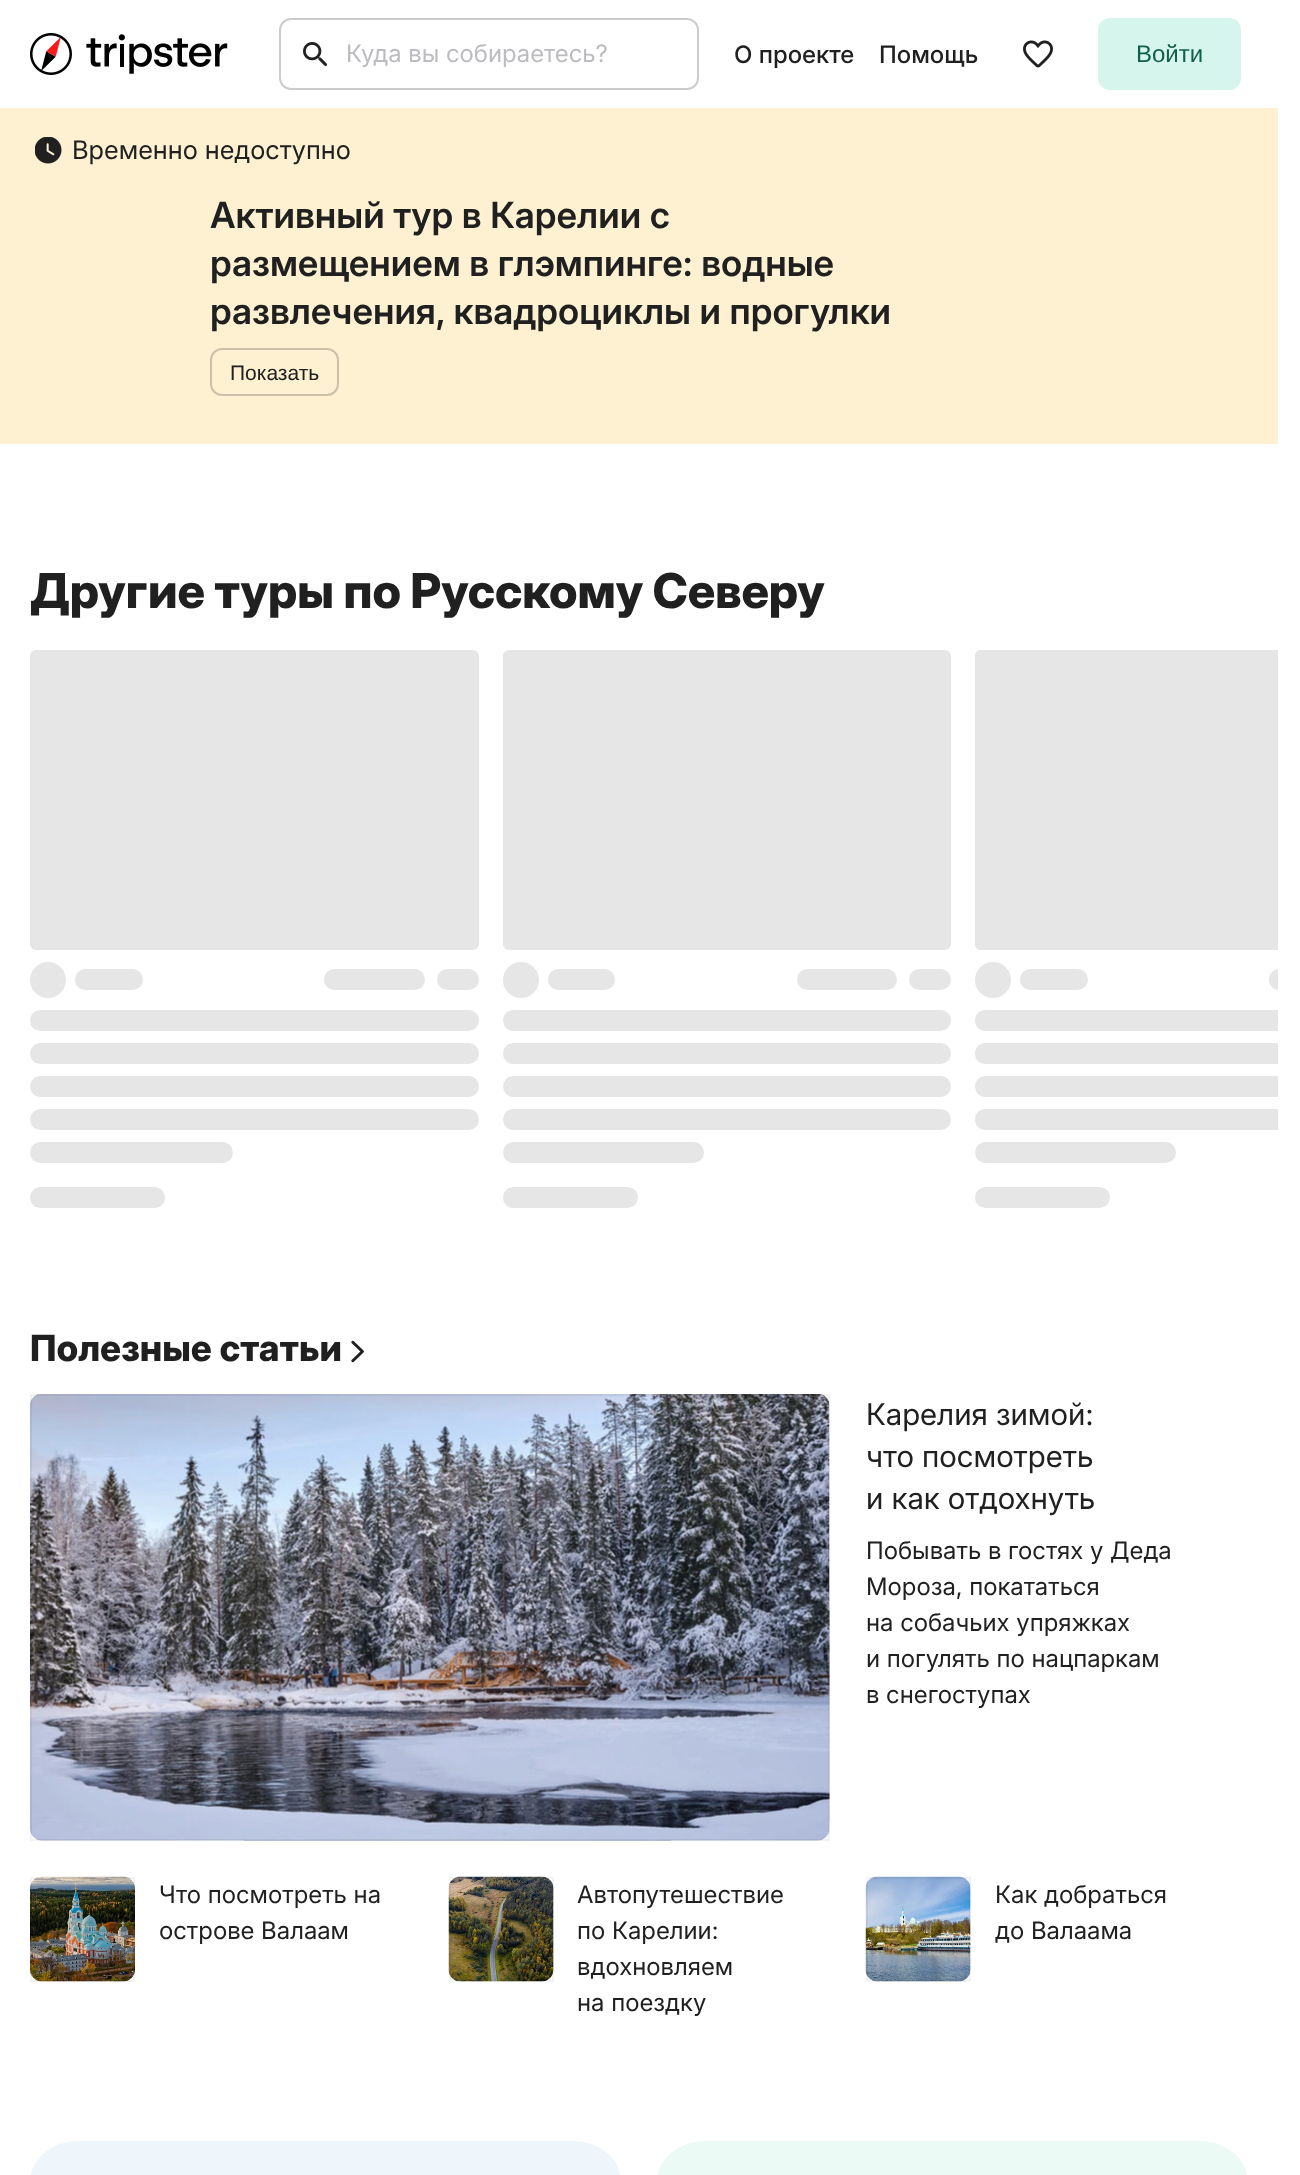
<?xml version="1.0" encoding="UTF-8"?>
<svg xmlns="http://www.w3.org/2000/svg" width="1300" height="2175">
    <rect width="100%" height="100%" fill="#FFFFFF"/>
    <image x="30" y="33" width="198" height="42" href="img_01.png"/>
    <rect x="280" y="19" width="418" height="70" rx="11" fill="none" stroke="#CCCCCC" stroke-width="2"/>
    <image x="303" y="42" width="24" height="24" href="img_02.png"/>
    <text x="346" y="62" font-family="'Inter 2'" font-size="24" fill="#BBBCBF">Куда вы собираетесь?</text>
    <text x="734" y="63" font-family="Inter" font-size="24" font-weight="500" fill="#202020">О проекте</text>
    <text x="879" y="63" font-family="Inter" font-size="24" font-weight="500" fill="#202020">Помощь</text>
    <image x="1023" y="40" width="30" height="28" href="img_03.png"/>
    <rect x="1098" y="18" width="143" height="72" rx="12" fill="#D6F5ED"/>
    <text x="1136" y="62" font-family="Liberation Sans" font-size="24" fill="#115F4A">Войти</text>
    <rect x="0" y="108" width="1278" height="336" fill="#FDF1D2"/>
    <image x="35" y="137" width="27" height="27" href="img_04.png"/>
    <text x="72" y="159" font-family="'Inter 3'" font-size="25.5" fill="#202020">Временно недоступно</text>
    <text font-family="Inter" font-size="36" font-weight="600" fill="#202020">
        <tspan x="210" y="228">Активный тур в Карелии с</tspan>
        <tspan x="210" y="276">размещением в глэмпинге: водные</tspan>
        <tspan x="210" y="324">развлечения, квадроциклы и прогулки</tspan>
    </text>
    <rect x="211" y="349" width="127" height="46" rx="11" fill="none" stroke="#CAC1A8" stroke-width="2"/>
    <text x="230" y="380" font-family="Liberation Sans" font-size="21" fill="#202020">Показать</text>
    <text x="30" y="608" font-family="'Inter 2'" font-size="48" font-weight="800" fill="#202020">Другие туры по Русскому Северу</text>
    <rect x="30" y="650" width="449" height="300" rx="6" fill="#E6E6E6"/>
    <circle cx="48" cy="980" r="18" fill="#E6E6E6"/>
    <rect x="75" y="969" width="68" height="21" rx="10.5" fill="#E6E6E6"/>
    <rect x="437" y="969" width="42" height="21" rx="10.5" fill="#E6E6E6"/>
    <rect x="324" y="969" width="101" height="21" rx="10.5" fill="#E6E6E6"/>
    <rect x="30" y="1010" width="449" height="21" rx="10.5" fill="#E6E6E6"/>
    <rect x="30" y="1043" width="449" height="21" rx="10.5" fill="#E6E6E6"/>
    <rect x="30" y="1076" width="449" height="21" rx="10.5" fill="#E6E6E6"/>
    <rect x="30" y="1109" width="449" height="21" rx="10.5" fill="#E6E6E6"/>
    <rect x="30" y="1142" width="203" height="21" rx="10.5" fill="#E6E6E6"/>
    <rect x="30" y="1187" width="135" height="21" rx="10.5" fill="#E6E6E6"/>
    <rect x="503" y="650" width="448" height="300" rx="6" fill="#E6E6E6"/>
    <circle cx="521" cy="980" r="18" fill="#E6E6E6"/>
    <rect x="548" y="969" width="67" height="21" rx="10.5" fill="#E6E6E6"/>
    <rect x="909" y="969" width="42" height="21" rx="10.5" fill="#E6E6E6"/>
    <rect x="797" y="969" width="100" height="21" rx="10.5" fill="#E6E6E6"/>
    <rect x="503" y="1010" width="448" height="21" rx="10.5" fill="#E6E6E6"/>
    <rect x="503" y="1043" width="448" height="21" rx="10.5" fill="#E6E6E6"/>
    <rect x="503" y="1076" width="448" height="21" rx="10.5" fill="#E6E6E6"/>
    <rect x="503" y="1109" width="448" height="21" rx="10.5" fill="#E6E6E6"/>
    <rect x="503" y="1142" width="201" height="21" rx="10.5" fill="#E6E6E6"/>
    <rect x="503" y="1187" width="135" height="21" rx="10.5" fill="#E6E6E6"/>
    <path d="M 981 650 H 1278 V 950 H 981 C 977.5 950 975 947.5 975 944 V 656 C 975 652.5 977.5 650 981 650 Z" fill="#E6E6E6"/>
    <circle cx="993" cy="980" r="18" fill="#E6E6E6"/>
    <rect x="1020" y="969" width="68" height="21" rx="10.5" fill="#E6E6E6"/>
    <path d="M 1279.5 969 H 1278 V 990 H 1279.5 C 1273.5 990 1269 985.5 1269 979.5 C 1269 973.5 1273.5 969 1279.5 969 Z" fill="#E6E6E6"/>
    <path d="M 985.5 1010 H 1278 V 1031 H 985.5 C 979.5 1031 975 1026.5 975 1020.5 C 975 1014.5 979.5 1010 985.5 1010 Z" fill="#E6E6E6"/>
    <path d="M 985.5 1043 H 1278 V 1064 H 985.5 C 979.5 1064 975 1059.5 975 1053.5 C 975 1047.5 979.5 1043 985.5 1043 Z" fill="#E6E6E6"/>
    <path d="M 985.5 1076 H 1278 V 1097 H 985.5 C 979.5 1097 975 1092.5 975 1086.5 C 975 1080.5 979.5 1076 985.5 1076 Z" fill="#E6E6E6"/>
    <path d="M 985.5 1109 H 1278 V 1130 H 985.5 C 979.5 1130 975 1125.5 975 1119.5 C 975 1113.5 979.5 1109 985.5 1109 Z" fill="#E6E6E6"/>
    <rect x="975" y="1142" width="201" height="21" rx="10.5" fill="#E6E6E6"/>
    <rect x="975" y="1187" width="135" height="21" rx="10.5" fill="#E6E6E6"/>
    <text x="30" y="1361" font-family="Inter" font-size="36" font-weight="800" fill="#202020">Полезные статьи</text>
    <image x="351" y="1340" width="13" height="23" href="img_05.png"/>
    <image x="30" y="1394" width="800" height="447" href="img_06.png"/>
    <rect x="31" y="1395" width="798" height="445" fill="none" stroke="#000000" stroke-opacity="0.05" stroke-width="2"/>
    <text font-family="Inter" font-size="30" fill="#202020">
        <tspan x="866" y="1425">Карелия зимой:</tspan>
        <tspan x="866" y="1467">что посмотреть</tspan>
        <tspan x="866" y="1509">и как отдохнуть</tspan>
    </text>
    <text font-family="'Inter 2'" font-size="24" fill="#202020">
        <tspan x="866" y="1559">Побывать в гостях у Деда</tspan>
        <tspan x="866" y="1595">Мороза, покататься</tspan>
        <tspan x="866" y="1631">на собачьих упряжках</tspan>
        <tspan x="866" y="1667">и погулять по нацпаркам</tspan>
        <tspan x="866" y="1703">в снегоступах</tspan>
    </text>
    <image x="30" y="1876" width="105" height="106" href="img_07.png"/>
    <rect x="31" y="1878" width="103" height="103" fill="none" stroke="#000000" stroke-opacity="0.05" stroke-width="2"/>
    <text font-family="'Inter 2'" font-size="24" fill="#202020">
        <tspan x="159" y="1903">Что посмотреть на</tspan>
        <tspan x="159" y="1939">острове Валаам</tspan>
    </text>
    <image x="448" y="1876" width="106" height="106" href="img_08.png"/>
    <rect x="450" y="1878" width="103" height="103" fill="none" stroke="#000000" stroke-opacity="0.05" stroke-width="2"/>
    <text font-family="'Inter 2'" font-size="24" fill="#202020">
        <tspan x="577" y="1903">Автопутешествие</tspan>
        <tspan x="577" y="1939">по Карелии:</tspan>
        <tspan x="577" y="1975">вдохновляем</tspan>
        <tspan x="577" y="2011">на поездку</tspan>
    </text>
    <image x="865" y="1876" width="106" height="106" href="img_09.png"/>
    <rect x="867" y="1878" width="103" height="103" fill="none" stroke="#000000" stroke-opacity="0.05" stroke-width="2"/>
    <text font-family="'Inter 2'" font-size="24" fill="#202020">
        <tspan x="995" y="1903">Как добраться</tspan>
        <tspan x="995" y="1939">до Валаама</tspan>
    </text>
    <rect x="30" y="2141" width="591" height="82" rx="48" fill="#EEF6FC"/>
    <rect x="657" y="2141" width="591" height="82" rx="48" fill="#EBFAF5"/>
</svg>
